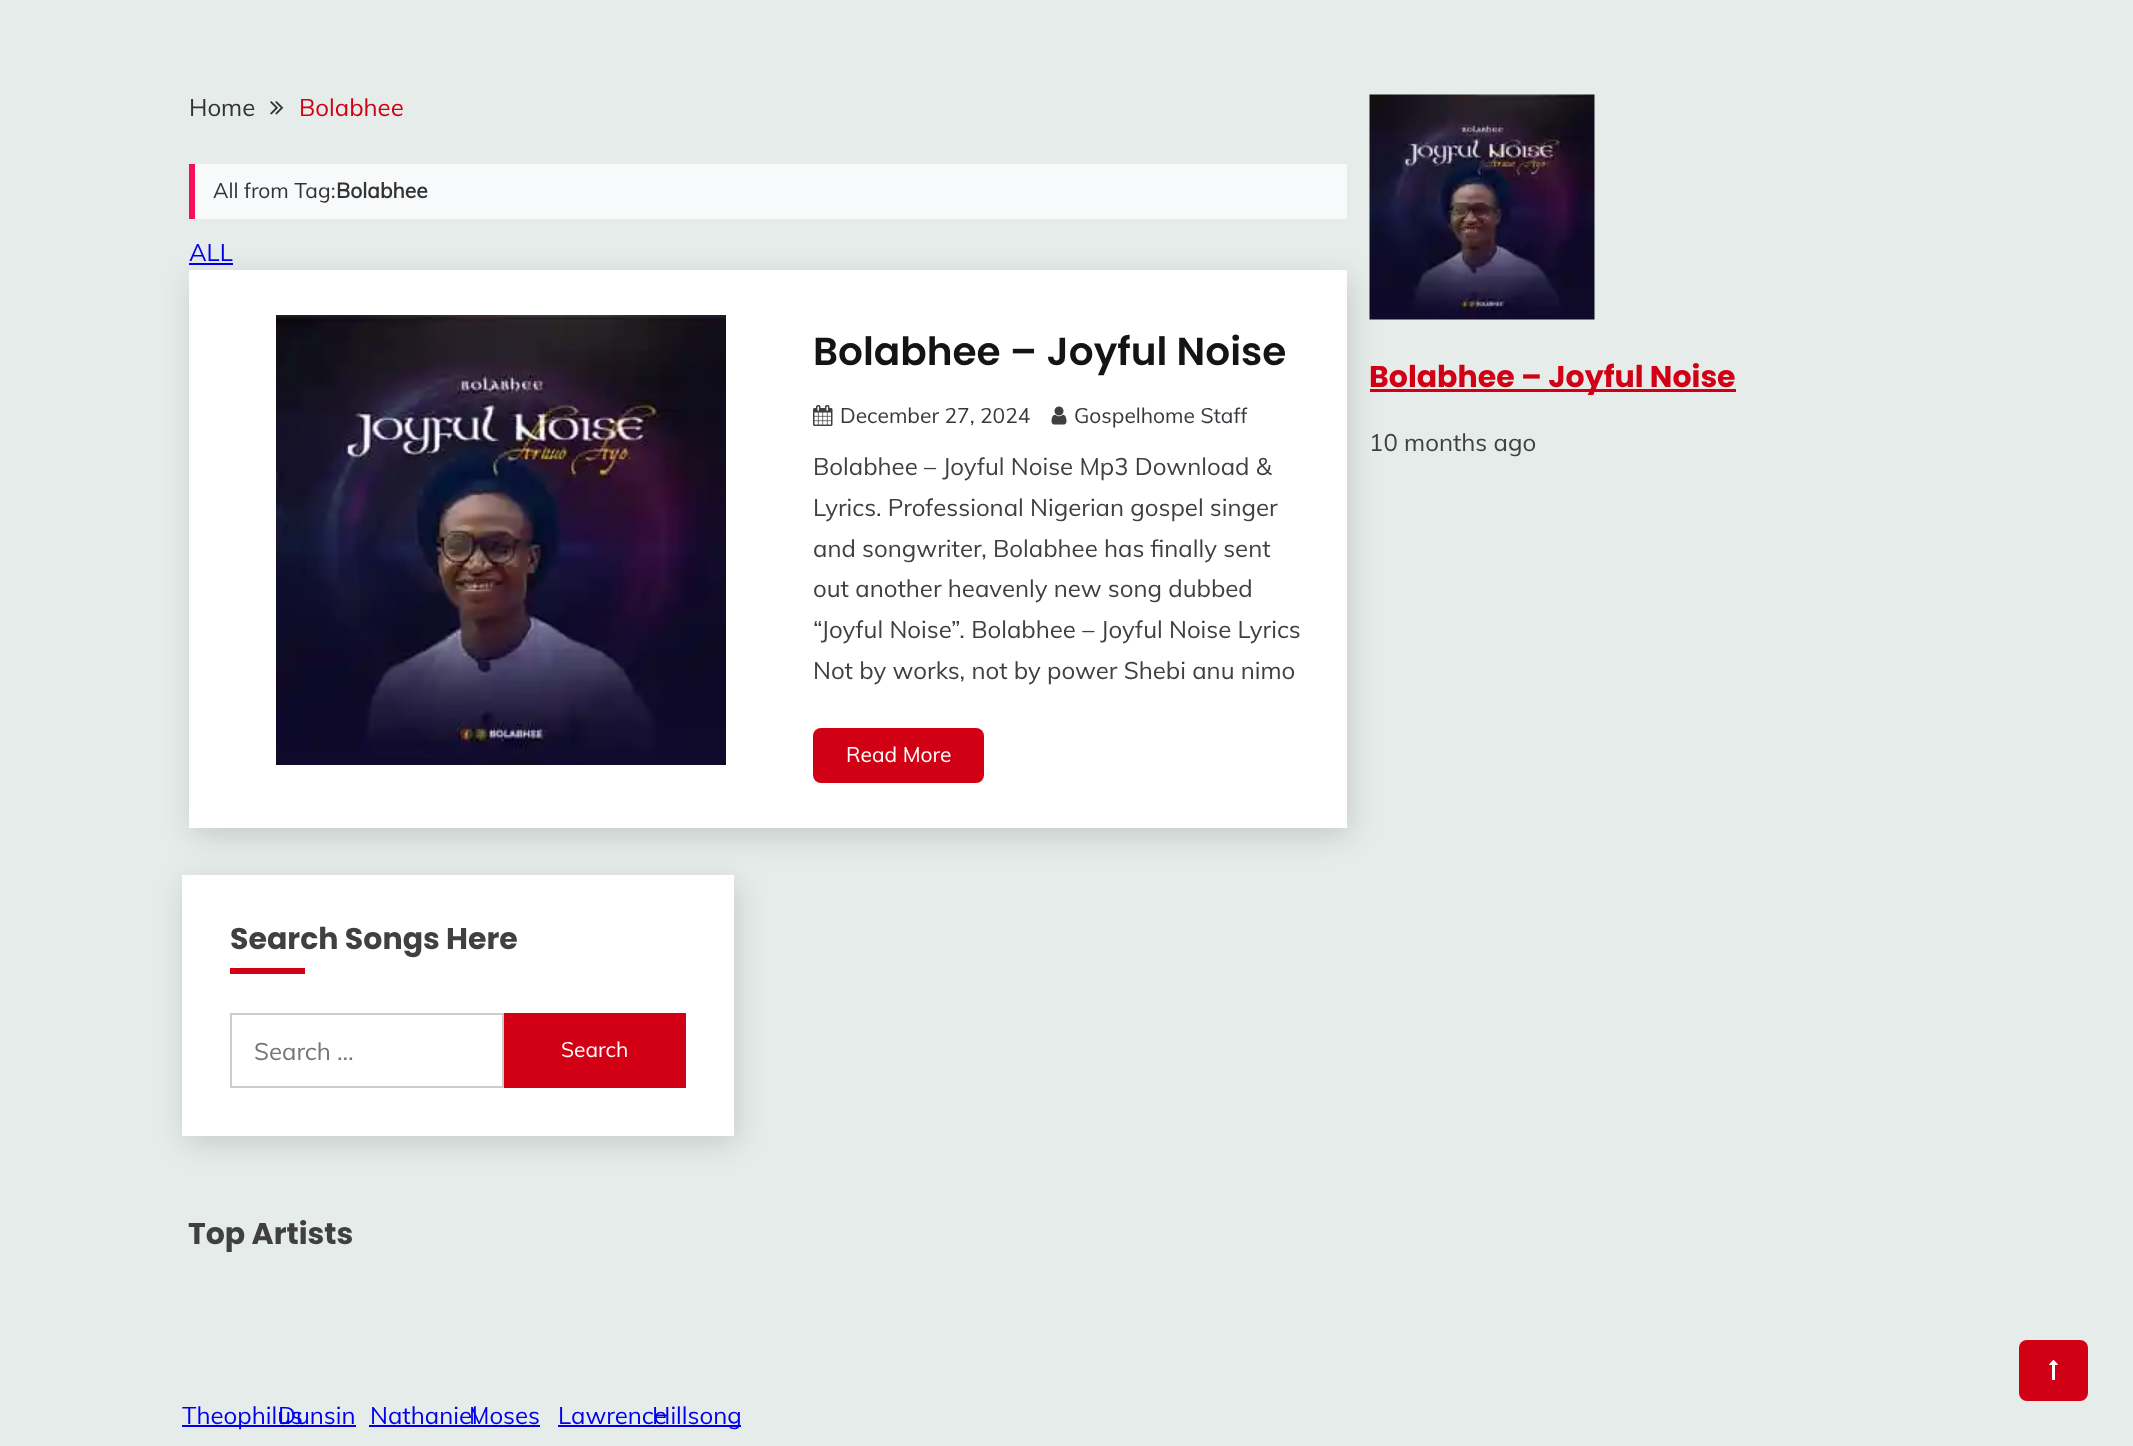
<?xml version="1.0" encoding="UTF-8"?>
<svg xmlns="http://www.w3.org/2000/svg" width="2133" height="1446">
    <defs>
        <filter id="blur1" x="-50%" y="-200%" width="200%" height="500%"><feGaussianBlur stdDeviation="15"/></filter>
    </defs>
    <rect width="100%" height="100%" fill="#E5ECE9"/>
    <text x="189" y="116" font-family="Muli" font-size="24" fill="#333333">Home</text>
    <image x="270" y="101" width="14" height="14" href="img_01.png"/>
    <text x="299" y="116" font-family="Muli" font-size="24" fill="#D10014">Bolabhee</text>
    <rect x="195" y="164" width="1152" height="55" fill="#F8F9FA"/>
    <rect x="189" y="164" width="6" height="55" fill="#F70F5D"/>
    <text x="213" y="198" font-family="Muli" font-size="21" fill="#333333">All from Tag:</text>
    <text x="336" y="198" font-family="Muli" font-size="21" font-weight="700" fill="#333333">Bolabhee</text>
    <text x="189" y="261" font-family="Muli" font-size="24" fill="#0000EE">ALL</text>
    <rect x="189" y="263" width="44" height="2" fill="#0000EE"/>
    <image x="1369" y="94" width="226" height="226" href="img_05.png"/>
    <rect x="1370" y="389" width="366" height="3" fill="#D10014"/>
    <rect x="192" y="278" width="1158" height="558" fill="#000000" fill-opacity="0.14" filter="url(#blur1)"/>
    <rect x="189" y="270" width="1158" height="558" fill="#FFFFFF"/>
    <image x="276" y="315" width="450" height="450" href="img_02.png"/>
    <text x="813" y="365" font-family="Poppins" font-size="39" font-weight="600" fill="#141413">Bolabhee – Joyful Noise</text>
    <image x="813" y="405" width="20" height="21" href="img_03.png"/>
    <text x="840" y="423" font-family="Muli" font-size="21" fill="#37373F">December 27, 2024</text>
    <image x="1051" y="406" width="16" height="19" href="img_04.png"/>
    <text x="1074" y="423" font-family="Muli" font-size="21" fill="#37373F">Gospelhome Staff</text>
    <text font-family="Muli" font-size="24" fill="#404040">
        <tspan x="813" y="475">Bolabhee – Joyful Noise Mp3 Download &amp;</tspan>
        <tspan x="813" y="516">Lyrics. Professional Nigerian gospel singer</tspan>
        <tspan x="813" y="557">and songwriter, Bolabhee has finally sent</tspan>
        <tspan x="813" y="597">out another heavenly new song dubbed</tspan>
        <tspan x="813" y="638">“Joyful Noise”. Bolabhee – Joyful Noise Lyrics</tspan>
        <tspan x="813" y="679">Not by works, not by power Shebi anu nimo</tspan>
    </text>
    <rect x="813" y="728" width="171" height="55" rx="8" fill="#D10014"/>
    <text x="846" y="762" font-family="Muli" font-size="21" fill="#FFFFFF">Read More</text>
    <text x="1369" y="387" font-family="Poppins" font-size="30" font-weight="700" fill="#D10014">Bolabhee – Joyful Noise</text>
    <text x="1369" y="451" font-family="Muli" font-size="24" fill="#404040">10 months ago</text>
    <rect x="185" y="882" width="552" height="261" fill="#000000" fill-opacity="0.14" filter="url(#blur1)"/>
    <rect x="182" y="875" width="552" height="261" fill="#FFFFFF"/>
    <text x="230" y="949" font-family="Poppins" font-size="30" font-weight="700" fill="#404040">Search Songs Here</text>
    <rect x="230" y="968" width="75" height="6" fill="#D10014"/>
    <rect x="231" y="1014" width="272" height="73" fill="none" stroke="#CCCCCC" stroke-width="2"/>
    <text x="254" y="1060" font-family="Muli" font-size="24" fill="#757575">Search …</text>
    <rect x="504" y="1013" width="182" height="75" fill="#D10014"/>
    <text x="561" y="1057" font-family="Muli" font-size="21" fill="#FFFFFF">Search</text>
    <text x="188" y="1244" font-family="Poppins" font-size="30" font-weight="700" fill="#404040">Top Artists</text>
    <rect x="182" y="1425" width="96" height="2" fill="#0000EE"/>
    <text x="182" y="1424" font-family="Muli" font-size="24" fill="#0000EE">Theophilus</text>
    <text x="278" y="1424" font-family="Muli" font-size="24" fill="#0000EE">Dunsin</text>
    <rect x="278" y="1425" width="78" height="2" fill="#0000EE"/>
    <text x="370" y="1424" font-family="Muli" font-size="24" fill="#0000EE">Nathaniel</text>
    <rect x="369" y="1425" width="171" height="2" fill="#0000EE"/>
    <text x="469" y="1424" font-family="Muli" font-size="24" fill="#0000EE">Moses</text>
    <text x="558" y="1424" font-family="Muli" font-size="24" fill="#0000EE">Lawrence</text>
    <rect x="558" y="1425" width="183" height="2" fill="#0000EE"/>
    <text x="652" y="1424" font-family="Muli" font-size="24" fill="#0000EE">Hillsong</text>
    <rect x="2019" y="1340" width="69" height="61" rx="8" fill="#D10014"/>
    <image x="2049" y="1359" width="9" height="21" href="img_06.png"/>
</svg>
